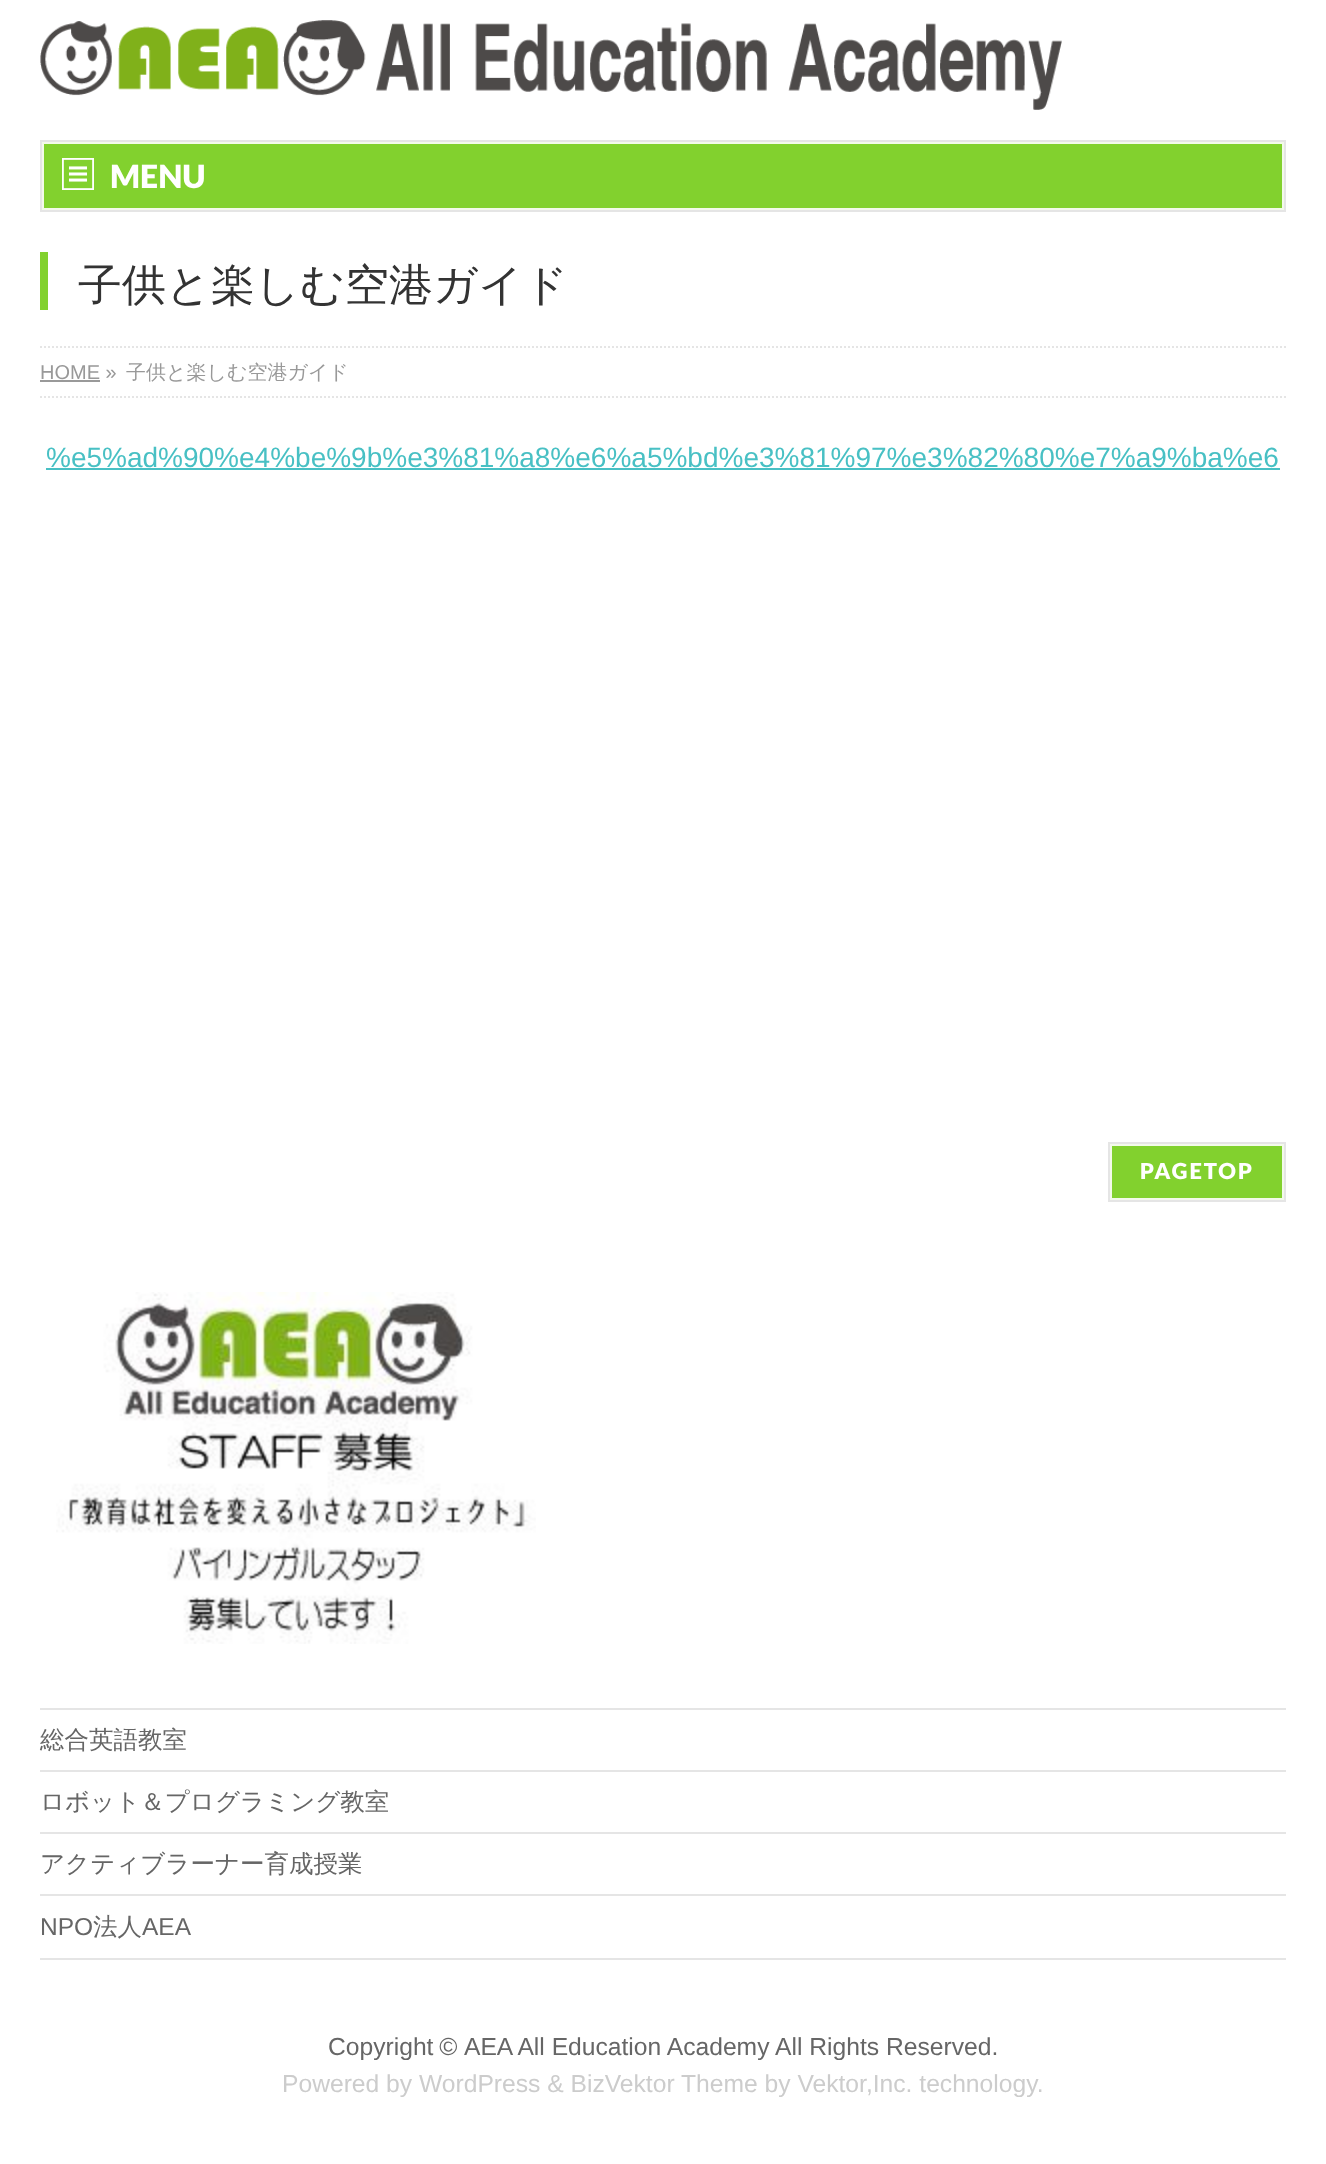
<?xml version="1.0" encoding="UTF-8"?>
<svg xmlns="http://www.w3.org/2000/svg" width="1326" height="2164">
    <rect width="100%" height="100%" fill="#FFFFFF"/>
    <image x="40" y="20" width="1022" height="90" href="img_01.png"/>
    <rect x="43" y="143" width="1240" height="66" fill="#82D12E" stroke="#F3FAEA" stroke-width="2"/>
    <rect x="41" y="141" width="1244" height="70" fill="none" stroke="#E5E5E5" stroke-width="2"/>
    <image x="62" y="158" width="32" height="32" href="img_02.png"/>
    <text x="110" y="188" font-family="Lato" font-size="32" font-weight="900" fill="#FFFFFF">MENU</text>
    <rect x="40" y="252" width="8" height="58" fill="#82D12E"/>
    <text x="78" y="300" font-family="WenQuanYi Zen Hei" font-size="44" font-weight="500" fill="#333333">子供と楽しむ空港ガイド</text>
    <path d="M 40 347 H 1286" fill="none" stroke="#E5E5E5" stroke-width="2" stroke-dasharray="2 2"/>
    <path d="M 40 397 H 1286" fill="none" stroke="#E5E5E5" stroke-width="2" stroke-dasharray="2 2"/>
    <text x="40" y="379" font-family="Liberation Sans" font-size="20" fill="#999999">HOME »</text>
    <rect x="40" y="380" width="60" height="2" fill="#999999"/>
    <text x="126" y="379" font-family="WenQuanYi Zen Hei" font-size="20" font-weight="500" fill="#999999">子供と楽しむ空港ガイド</text>
    <text x="46" y="467" font-family="Liberation Sans" font-size="28" fill="#48C0C4">%e5%ad%90%e4%be%9b%e3%81%a8%e6%a5%bd%e3%81%97%e3%82%80%e7%a9%ba%e6</text>
    <rect x="46" y="468" width="1234" height="2" fill="#48C0C4"/>
    <rect x="1111" y="1145" width="172" height="54" fill="#82D12E" stroke="#F3FAEA" stroke-width="2"/>
    <rect x="1109" y="1143" width="176" height="58" fill="none" stroke="#E5E5E5" stroke-width="2"/>
    <text x="1140" y="1179" font-family="Lato" font-size="22" font-weight="900" letter-spacing="2" fill="#FFFFFF">PAGETOP</text>
    <image x="56" y="1292" width="480" height="352" href="img_03.png"/>
    <rect x="40" y="1708" width="1246" height="2" fill="#E5E5E5"/>
    <rect x="40" y="1770" width="1246" height="2" fill="#E5E5E5"/>
    <text x="40" y="1748" font-family="WenQuanYi Zen Hei" font-size="24.5" font-weight="500" fill="#666666">総合英語教室</text>
    <rect x="40" y="1832" width="1246" height="2" fill="#E5E5E5"/>
    <text x="40" y="1810" font-family="WenQuanYi Zen Hei" font-size="24.5" font-weight="500" fill="#666666">ロボット＆プログラミング教室</text>
    <rect x="40" y="1894" width="1246" height="2" fill="#E5E5E5"/>
    <text x="40" y="1872" font-family="WenQuanYi Zen Hei" font-size="24.5" font-weight="500" fill="#666666">アクティブラーナー育成授業</text>
    <rect x="40" y="1958" width="1246" height="2" fill="#E5E5E5"/>
    <text x="40" y="1935" font-family="Liberation Sans" font-size="24.5" fill="#666666">NPO</text>
    <text x="93" y="1935" font-family="WenQuanYi Zen Hei" font-size="24.5" font-weight="500" fill="#666666">法人</text>
    <text x="142" y="1935" font-family="Liberation Sans" font-size="24.5" fill="#666666">AEA</text>
    <text x="328" y="2055" word-spacing="-1" font-family="Liberation Sans" font-size="24.65" fill="#666666">Copyright ©</text>
    <text x="464" y="2055" font-family="Liberation Sans" font-size="24.65" fill="#666666">AEA All Education Academy</text>
    <text x="775" y="2055" font-family="Liberation Sans" font-size="24.65" fill="#666666">All Rights Reserved.</text>
    <text x="282" y="2092" font-family="Liberation Sans" font-size="24.65" fill="#CCCCCC">Powered by WordPress &amp; BizVektor Theme by Vektor,Inc. technology.</text>
</svg>
